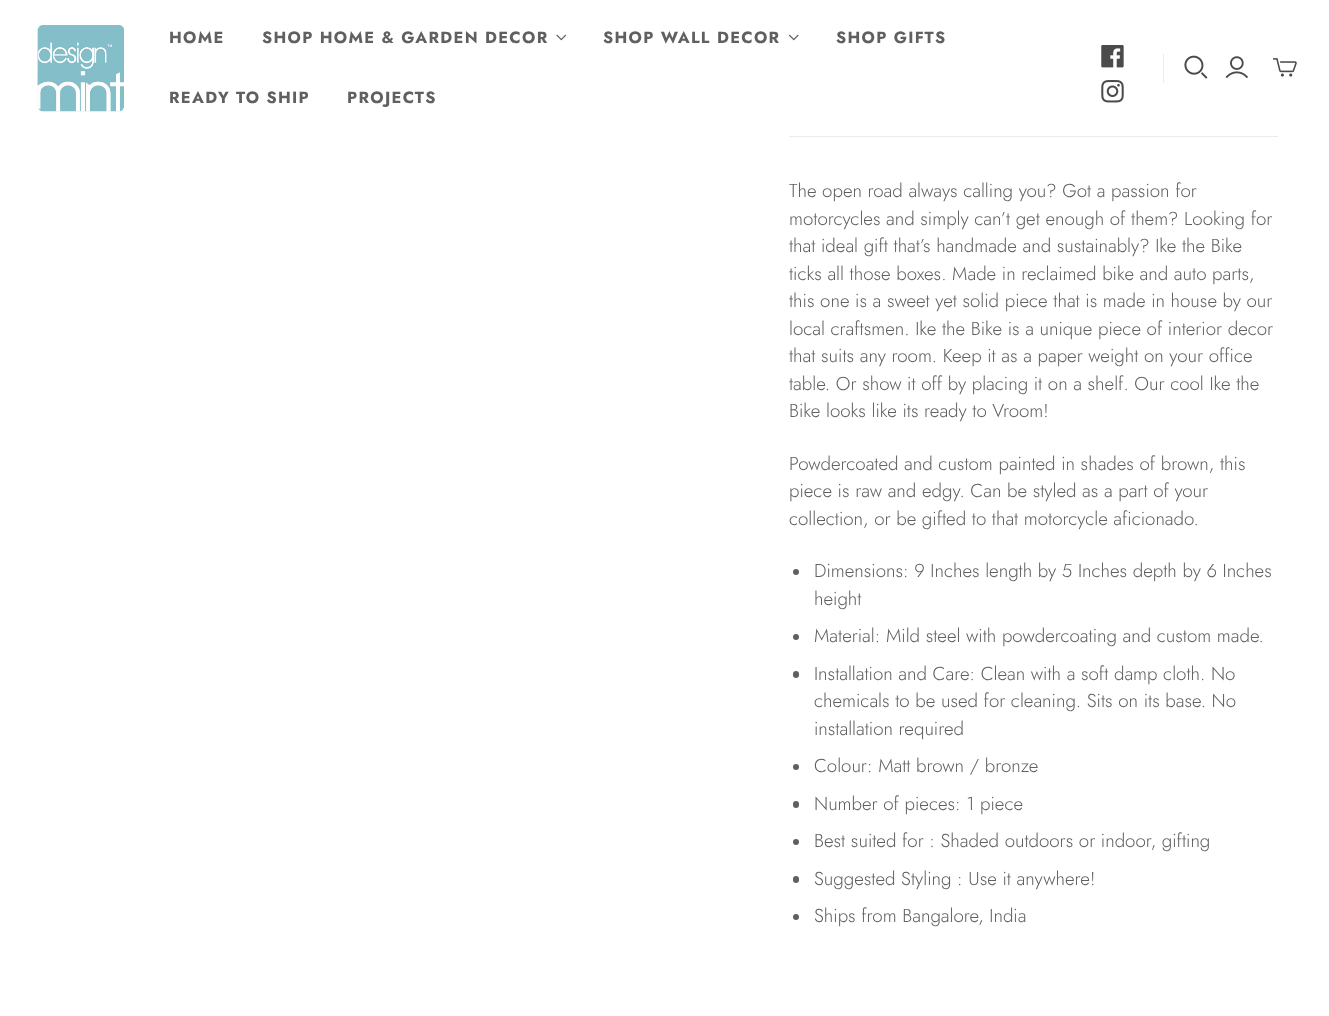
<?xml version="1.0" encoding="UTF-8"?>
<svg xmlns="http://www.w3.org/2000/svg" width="1329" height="1016">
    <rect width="100%" height="100%" fill="#FFFFFF"/>
    <image x="37" y="25" width="87" height="87" href="img_01.png"/>
    <text x="169" y="43" font-family="Jost" font-size="16.25" font-weight="700" letter-spacing="1.3" fill="#606060">HOME</text>
    <text x="262" y="43" font-family="Jost" font-size="16.25" font-weight="700" letter-spacing="1.3" fill="#606060">SHOP HOME &amp; GARDEN DECOR</text>
    <image x="556" y="34" width="10" height="7" href="img_02.png"/>
    <text x="603" y="43" font-family="Jost" font-size="16.25" font-weight="700" letter-spacing="1.3" fill="#606060">SHOP WALL DECOR</text>
    <image x="789" y="34" width="10" height="7" href="img_03.png"/>
    <text x="836" y="43" font-family="Jost" font-size="16.25" font-weight="700" letter-spacing="1.3" fill="#606060">SHOP GIFTS</text>
    <text x="169" y="103" font-family="Jost" font-size="16.25" font-weight="700" letter-spacing="1.3" fill="#606060">READY TO SHIP</text>
    <text x="347" y="103" font-family="Jost" font-size="16.25" font-weight="700" letter-spacing="1.3" fill="#606060">PROJECTS</text>
    <image x="1101" y="45" width="23" height="23" href="img_04.png"/>
    <rect x="1163" y="54" width="1" height="29" fill="#EBEBEB"/>
    <image x="1101" y="80" width="23" height="23" href="img_05.png"/>
    <image x="1184" y="55" width="24" height="24" href="img_06.png"/>
    <image x="1225" y="56" width="24" height="23" href="img_07.png"/>
    <image x="1273" y="58" width="24" height="19" href="img_08.png"/>
    <rect x="789" y="136" width="489" height="1" fill="#EBEBEB"/>
    <text font-family="Jost" font-size="18.75" font-weight="300" fill="#606060">
        <tspan x="789" y="197">The open road always calling you? Got a passion for</tspan>
        <tspan x="789" y="225">motorcycles and simply can’t get enough of them? Looking for</tspan>
        <tspan x="789" y="252">that ideal gift that’s handmade and sustainably? Ike the Bike</tspan>
        <tspan x="789" y="280">ticks all those boxes. Made in reclaimed bike and auto parts,</tspan>
        <tspan x="789" y="307">this one is a sweet yet solid piece that is made in house by our</tspan>
        <tspan x="789" y="335">local craftsmen. Ike the Bike is a unique piece of interior decor</tspan>
        <tspan x="789" y="362">that suits any room. Keep it as a paper weight on your office</tspan>
        <tspan x="789" y="390">table. Or show it off by placing it on a shelf. Our cool Ike the</tspan>
        <tspan x="789" y="417">Bike looks like its ready to Vroom!</tspan>
    </text>
    <text font-family="Jost" font-size="18.75" font-weight="300" fill="#606060">
        <tspan x="789" y="470">Powdercoated and custom painted in shades of brown, this</tspan>
        <tspan x="789" y="497">piece is raw and edgy. Can be styled as a part of your</tspan>
        <tspan x="789" y="525">collection, or be gifted to that motorcycle aficionado.</tspan>
    </text>
    <circle cx="796" cy="572" r="3" fill="#606060"/>
    <text font-family="Jost" font-size="18.75" font-weight="300" fill="#606060">
        <tspan x="814" y="577">Dimensions: 9 Inches length by 5 Inches depth by 6 Inches</tspan>
        <tspan x="814" y="605">height</tspan>
    </text>
    <circle cx="796" cy="637" r="3" fill="#606060"/>
    <text x="814" y="642" font-family="Jost" font-size="18.75" font-weight="300" fill="#606060">Material: Mild steel with powdercoating and custom made.</text>
    <rect x="793" y="671" width="6" height="7" rx="3" fill="#606060"/>
    <text font-family="Jost" font-size="18.75" font-weight="300" fill="#606060">
        <tspan x="814" y="680">Installation and Care: Clean with a soft damp cloth. No</tspan>
        <tspan x="814" y="707">chemicals to be used for cleaning. Sits on its base. No</tspan>
        <tspan x="814" y="735">installation required</tspan>
    </text>
    <circle cx="796" cy="767" r="3" fill="#606060"/>
    <text x="814" y="772" font-family="Jost" font-size="18.75" font-weight="300" fill="#606060">Colour: Matt brown / bronze</text>
    <rect x="793" y="801" width="6" height="7" rx="3" fill="#606060"/>
    <text x="814" y="810" font-family="Jost" font-size="18.75" font-weight="300" fill="#606060">Number of pieces: 1 piece</text>
    <circle cx="796" cy="842" r="3" fill="#606060"/>
    <text x="814" y="847" font-family="Jost" font-size="18.75" font-weight="300" fill="#606060">Best suited for : Shaded outdoors or indoor, gifting</text>
    <rect x="793" y="876" width="6" height="7" rx="3" fill="#606060"/>
    <text x="814" y="885" font-family="Jost" font-size="18.75" font-weight="300" fill="#606060">Suggested Styling : Use it anywhere!</text>
    <circle cx="796" cy="917" r="3" fill="#606060"/>
    <text x="814" y="922" font-family="Jost" font-size="18.75" font-weight="300" fill="#606060">Ships from Bangalore, India</text>
</svg>
